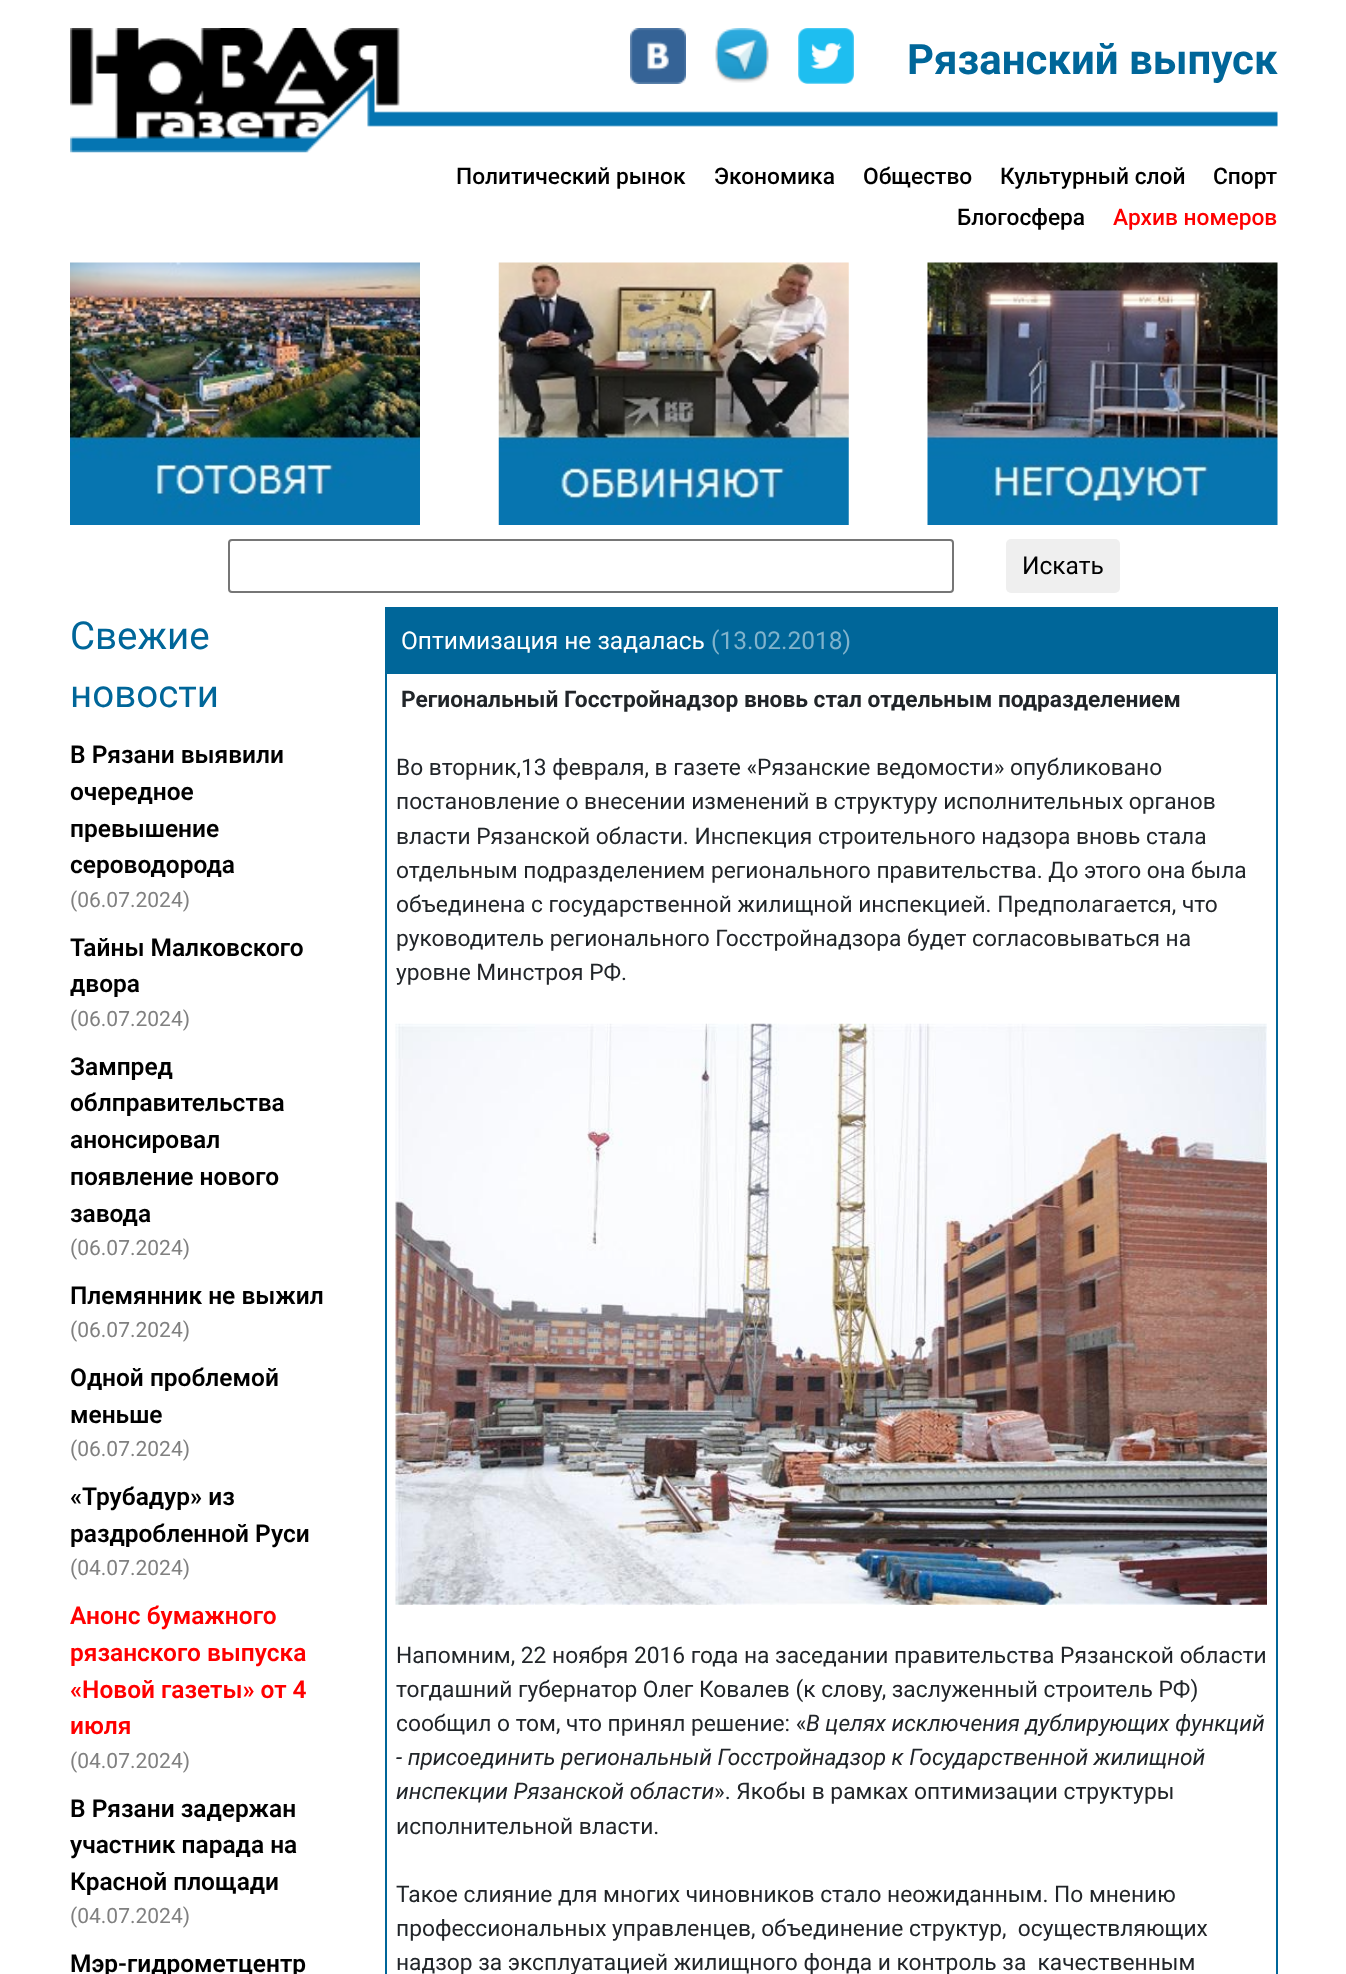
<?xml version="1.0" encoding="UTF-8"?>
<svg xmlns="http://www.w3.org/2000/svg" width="1346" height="1974">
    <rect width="100%" height="100%" fill="#FFFFFF"/>
    <image x="400" y="111" width="878" height="16" href="img_01.png"/>
    <image x="70" y="28" width="330" height="125" href="img_02.png"/>
    <image x="630" y="28" width="56" height="56" href="img_03.png"/>
    <image x="715" y="28" width="54" height="55" href="img_04.png"/>
    <image x="798" y="28" width="56" height="56" href="img_05.png"/>
    <text x="907" y="74" font-family="Roboto" font-size="42" font-weight="700" fill="#006699">Рязанский выпуск</text>
    <text x="456" y="184" font-family="Roboto" font-size="22.75" font-weight="500" fill="#000000">Политический рынок</text>
    <text x="714" y="184" font-family="Roboto" font-size="22.75" font-weight="500" fill="#000000">Экономика</text>
    <text x="863" y="184" font-family="Roboto" font-size="22.75" font-weight="500" fill="#000000">Общество</text>
    <text x="1000" y="184" font-family="Roboto" font-size="22.75" font-weight="500" fill="#000000">Культурный слой</text>
    <text x="1213" y="184" font-family="Roboto" font-size="22.75" font-weight="500" fill="#000000">Спорт</text>
    <text x="957" y="225" font-family="Roboto" font-size="22.75" font-weight="500" fill="#000000">Блогосфера</text>
    <text x="1113" y="225" font-family="Roboto" font-size="22.75" font-weight="500" fill="#FF0000">Архив номеров</text>
    <image x="70" y="262" width="350" height="263" href="img_06.png"/>
    <image x="498" y="262" width="351" height="263" href="img_07.png"/>
    <image x="927" y="262" width="351" height="263" href="img_08.png"/>
    <rect x="229" y="540" width="724" height="52" rx="3" fill="none" stroke="#767676" stroke-width="2"/>
    <rect x="1006" y="539" width="114" height="54" rx="5" fill="#EFEFEF"/>
    <text x="1022" y="574" font-family="Roboto" font-size="24.5" fill="#000000">Искать</text>
    <text font-family="Roboto" font-size="38.5" fill="#006699">
        <tspan x="70" y="649">Свежие</tspan>
        <tspan x="70" y="707">новости</tspan>
    </text>
    <text font-family="Roboto" font-size="24.5" font-weight="600" fill="#000000">
        <tspan x="70" y="763">В Рязани выявили</tspan>
        <tspan x="70" y="800">очередное</tspan>
        <tspan x="70" y="837">превышение</tspan>
        <tspan x="70" y="873">сероводорода</tspan>
    </text>
    <text x="70" y="907" font-family="Roboto" font-size="21" fill="#808080">(06.07.2024)</text>
    <text font-family="Roboto" font-size="24.5" font-weight="600" fill="#000000">
        <tspan x="70" y="956">Тайны Малковского</tspan>
        <tspan x="70" y="992">двора</tspan>
    </text>
    <text x="70" y="1026" font-family="Roboto" font-size="21" fill="#808080">(06.07.2024)</text>
    <text font-family="Roboto" font-size="24.5" font-weight="600" fill="#000000">
        <tspan x="70" y="1075">Зампред</tspan>
        <tspan x="70" y="1111">облправительства</tspan>
        <tspan x="70" y="1148">анонсировал</tspan>
        <tspan x="70" y="1185">появление нового</tspan>
        <tspan x="70" y="1222">завода</tspan>
    </text>
    <text x="70" y="1255" font-family="Roboto" font-size="21" fill="#808080">(06.07.2024)</text>
    <text x="70" y="1304" font-family="Roboto" font-size="24.5" font-weight="600" fill="#000000">Племянник не выжил</text>
    <text x="70" y="1337" font-family="Roboto" font-size="21" fill="#808080">(06.07.2024)</text>
    <text font-family="Roboto" font-size="24.5" font-weight="600" fill="#000000">
        <tspan x="70" y="1386">Одной проблемой</tspan>
        <tspan x="70" y="1423">меньше</tspan>
    </text>
    <text x="70" y="1456" font-family="Roboto" font-size="21" fill="#808080">(06.07.2024)</text>
    <text font-family="Roboto" font-size="24.5" font-weight="600" fill="#000000">
        <tspan x="70" y="1505">«Трубадур» из</tspan>
        <tspan x="70" y="1542">раздробленной Руси</tspan>
    </text>
    <text x="70" y="1575" font-family="Roboto" font-size="21" fill="#808080">(04.07.2024)</text>
    <text font-family="Roboto" font-size="24.5" font-weight="600" fill="#FF0000">
        <tspan x="70" y="1624">Анонс бумажного</tspan>
        <tspan x="70" y="1661">рязанского выпуска</tspan>
        <tspan x="70" y="1698">«Новой газеты» от 4</tspan>
        <tspan x="70" y="1734">июля</tspan>
    </text>
    <text x="70" y="1768" font-family="Roboto" font-size="21" fill="#808080">(04.07.2024)</text>
    <text font-family="Roboto" font-size="24.5" font-weight="600" fill="#000000">
        <tspan x="70" y="1817">В Рязани задержан</tspan>
        <tspan x="70" y="1853">участник парада на</tspan>
        <tspan x="70" y="1890">Красной площади</tspan>
    </text>
    <text x="70" y="1923" font-family="Roboto" font-size="21" fill="#808080">(04.07.2024)</text>
    <text x="70" y="1972" font-family="Roboto" font-size="24.5" font-weight="600" fill="#000000">Мэр-гидрометцентр</text>
    <rect x="385" y="607" width="893" height="1367" fill="#006699"/>
    <text x="401" y="649" font-family="Roboto" font-size="24.5" fill="#FFFFFF">Оптимизация не задалась</text>
    <text x="711" y="649" font-family="Roboto" font-size="24.5" fill="#80B3CC">(13.02.2018)</text>
    <rect x="387" y="674" width="889" height="1300" fill="#FFFFFF"/>
    <text x="401" y="707" font-family="Roboto" font-size="22.75" font-weight="700" fill="#212529">Региональный Госстройнадзор вновь стал отдельным подразделением</text>
    <text font-family="Roboto" font-size="22.75" fill="#212529">
        <tspan x="396" y="775">Во вторник,13 февраля, в газете «Рязанские ведомости» опубликовано</tspan>
        <tspan x="396" y="809">постановление о внесении изменений в структуру исполнительных органов</tspan>
        <tspan x="396" y="844">власти Рязанской области. Инспекция строительного надзора вновь стала</tspan>
        <tspan x="396" y="878">отдельным подразделением регионального правительства. До этого она была</tspan>
        <tspan x="396" y="912">объединена с государственной жилищной инспекцией. Предполагается, что</tspan>
        <tspan x="396" y="946">руководитель регионального Госстройнадзора будет согласовываться на</tspan>
        <tspan x="396" y="980">уровне Минстроя РФ.</tspan>
    </text>
    <image x="395" y="1023" width="872" height="582" href="img_09.png"/>
    <text font-family="Roboto" font-size="22.75" fill="#212529">
        <tspan x="396" y="1663">Напомним, 22 ноября 2016 года на заседании правительства Рязанской области</tspan>
        <tspan x="396" y="1697">тогдашний губернатор Олег Ковалев (к слову, заслуженный строитель РФ)</tspan>
        <tspan x="396" y="1731">сообщил о том, что принял решение: «</tspan>
    </text>
    <text x="806" y="1731" font-family="Roboto" font-size="22.75" font-style="italic" fill="#212529">В целях исключения дублирующих функций</text>
    <text font-family="Roboto" font-size="22.75" font-style="italic" fill="#212529">
        <tspan x="396" y="1765">- присоединить региональный Госстройнадзор к Государственной жилищной</tspan>
        <tspan x="396" y="1799">инспекции Рязанской области</tspan>
    </text>
    <text x="714" y="1799" font-family="Roboto" font-size="22.75" fill="#212529">». Якобы в рамках оптимизации структуры</text>
    <text x="396" y="1834" font-family="Roboto" font-size="22.75" fill="#212529">исполнительной власти.</text>
    <text font-family="Roboto" font-size="22.75" fill="#212529" xml:space="preserve"><tspan x="396" y="1902">Такое слияние для многих чиновников стало неожиданным. По мнению</tspan><tspan x="396" y="1936">профессиональных управленцев, объединение структур,  осуществляющих</tspan><tspan x="396" y="1970">надзор за эксплуатацией жилищного фонда и контроль за  качественным</tspan></text>
</svg>
